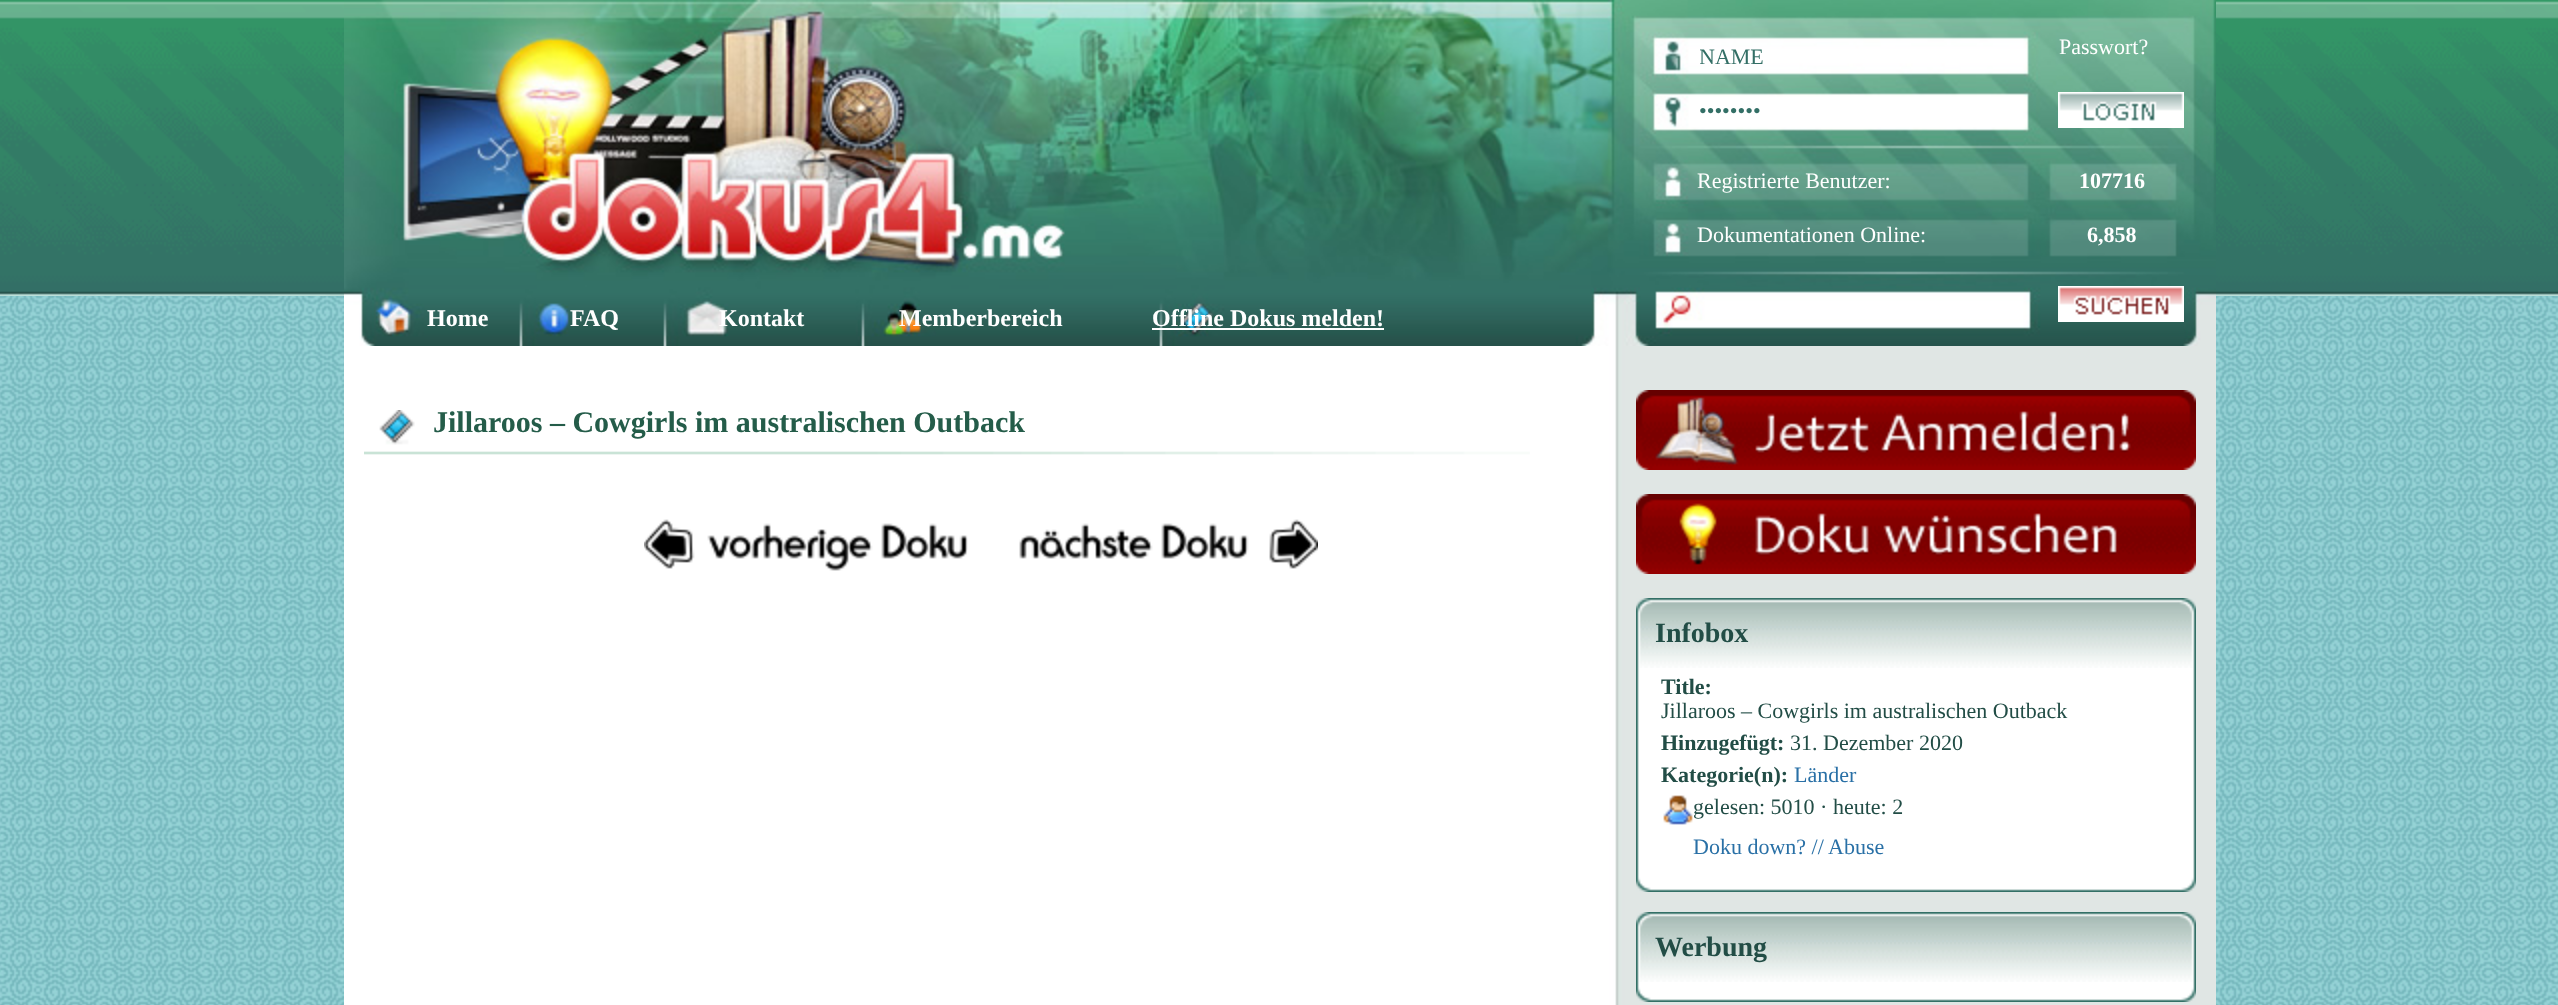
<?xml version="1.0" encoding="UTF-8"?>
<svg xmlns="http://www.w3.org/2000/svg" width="2558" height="1005">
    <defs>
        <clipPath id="clip1"><rect x="1700" y="44" width="320" height="24"/></clipPath>
    </defs>
    <rect width="100%" height="100%" fill="#FFFFFF"/>
    <image x="0" y="296" width="2558" height="709" href="img_01.png"/>
    <image x="0" y="0" width="2558" height="296" href="img_02.png"/>
    <image x="344" y="346" width="1872" height="659" href="img_03.png"/>
    <image x="344" y="0" width="1872" height="346" href="img_04.png"/>
    <text x="2059" y="54" font-family="Liberation Serif" font-size="22" fill="#FFFFFF">Passwort?</text>
    <g clip-path="url(#clip1)">
        <text x="1699" y="64" font-family="Liberation Serif" font-size="22" fill="#336F66">NAME</text>
    </g>
    <text x="1699" y="118" font-family="Liberation Serif" font-size="22" fill="#336F66">••••••••</text>
    <image x="2058" y="92" width="126" height="36" href="img_05.png"/>
    <text x="1697" y="188" font-family="Liberation Serif" font-size="22" fill="#FFFFFF">Registrierte Benutzer:</text>
    <text x="2079" y="188" font-family="Liberation Serif" font-size="22" font-weight="700" fill="#FFFFFF">107716</text>
    <text x="1697" y="242" font-family="Liberation Serif" font-size="22" fill="#FFFFFF">Dokumentationen Online:</text>
    <text x="2087" y="242" font-family="Liberation Serif" font-size="22" font-weight="700" fill="#FFFFFF">6,858</text>
    <image x="2058" y="286" width="126" height="36" href="img_06.png"/>
    <text x="427" y="326" font-family="Liberation Serif" font-size="24" font-weight="700" fill="#FFFFFF">Home</text>
    <text x="570" y="326" font-family="Liberation Serif" font-size="24" font-weight="700" fill="#FFFFFF">FAQ</text>
    <text x="719" y="326" font-family="Liberation Serif" font-size="24" font-weight="700" fill="#FFFFFF">Kontakt</text>
    <text x="899" y="326" font-family="Liberation Serif" font-size="24" font-weight="700" fill="#FFFFFF">Memberbereich</text>
    <text x="1152" y="326" font-family="Liberation Serif" font-size="24" font-weight="700" fill="#FFFFFF">Offline Dokus melden!</text>
    <rect x="1152" y="328" width="232" height="2" fill="#FFFFFF"/>
    <image x="364" y="410" width="1166" height="45" href="img_07.png"/>
    <text x="433" y="432" font-family="Liberation Serif" font-size="30" font-weight="700" fill="#245C49">Jillaroos – Cowgirls im australischen Outback</text>
    <image x="644" y="519" width="324" height="52" href="img_08.png"/>
    <image x="1019" y="519" width="299" height="50" href="img_09.png"/>
    <image x="1636" y="390" width="560" height="80" href="img_10.png"/>
    <image x="1636" y="494" width="560" height="80" href="img_11.png"/>
    <image x="1636" y="598" width="560" height="70" href="img_12.png"/>
    <text x="1655" y="642" font-family="Liberation Serif" font-size="28" font-weight="700" fill="#224D46">Infobox</text>
    <image x="1636" y="668" width="560" height="204" href="img_13.png"/>
    <text x="1661" y="694" font-family="Liberation Serif" font-size="22" font-weight="700" fill="#224D46">Title:</text>
    <text x="1661" y="718" font-family="Liberation Serif" font-size="22" fill="#224D46">Jillaroos – Cowgirls im australischen Outback</text>
    <text x="1661" y="750" font-family="Liberation Serif" font-size="22" font-weight="700" fill="#224D46">Hinzugefügt:</text>
    <text x="1790" y="750" font-family="Liberation Serif" font-size="22" fill="#224D46">31. Dezember 2020</text>
    <text x="1661" y="782" font-family="Liberation Serif" font-size="22" font-weight="700" fill="#224D46">Kategorie(n):</text>
    <text x="1794" y="782" font-family="Liberation Serif" font-size="22" fill="#2970A6">Länder</text>
    <image x="1663" y="795" width="30" height="30" href="img_14.png"/>
    <text x="1693" y="814" font-family="Liberation Serif" font-size="22" fill="#224D46">gelesen: 5010 · heute: 2</text>
    <text x="1693" y="854" font-family="Liberation Serif" font-size="22" fill="#2970A6">Doku down? // Abuse</text>
    <image x="1636" y="872" width="560" height="20" href="img_15.png"/>
    <image x="1636" y="912" width="560" height="70" href="img_12.png"/>
    <text x="1655" y="956" font-family="Liberation Serif" font-size="28" font-weight="700" fill="#224D46">Werbung</text>
    <image x="1636" y="982" width="560" height="20" href="img_15.png"/>
</svg>
